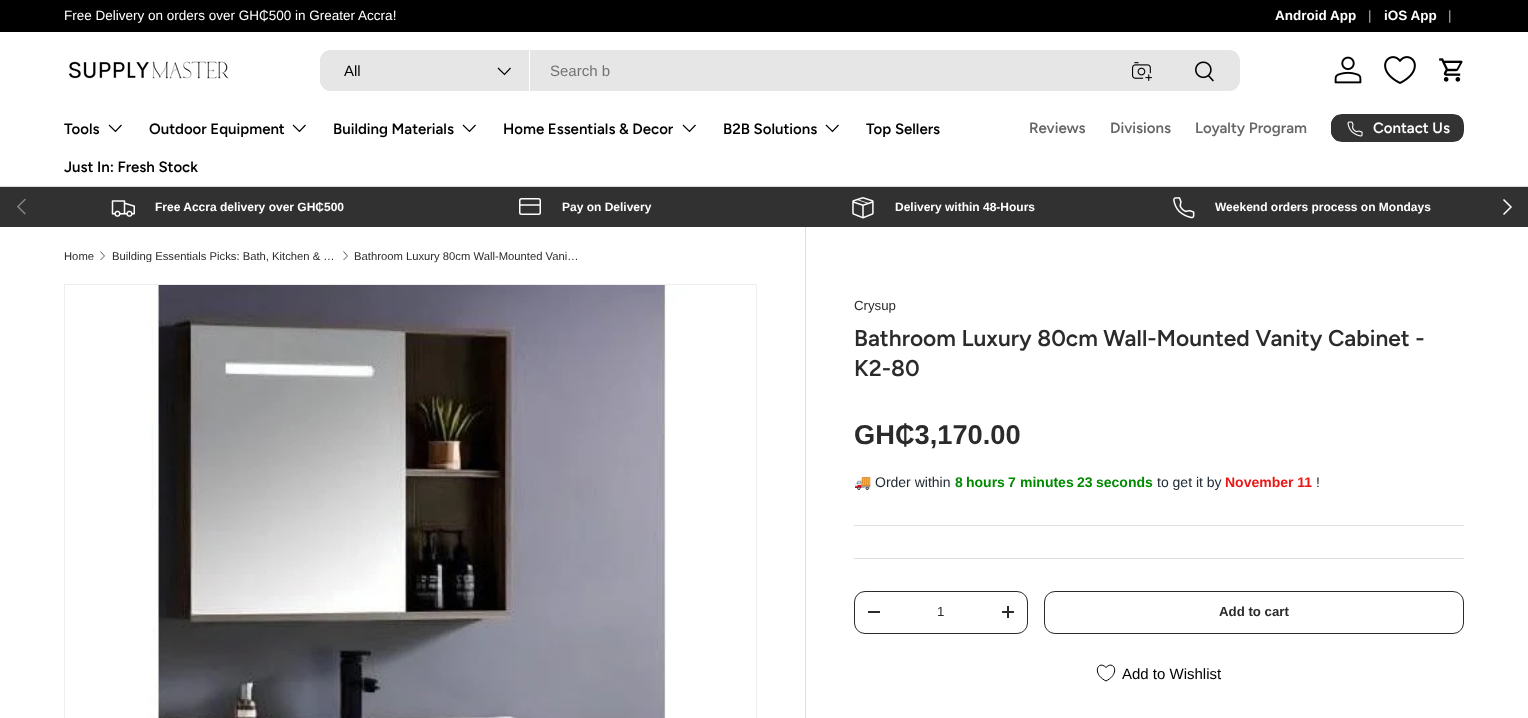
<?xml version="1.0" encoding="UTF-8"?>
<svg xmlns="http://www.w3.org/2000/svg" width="1528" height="718">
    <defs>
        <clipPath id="clip1"><rect x="1331" y="114" width="133" height="28" rx="11"/></clipPath>
        <linearGradient id="g1" gradientUnits="userSpaceOnUse" x1="1078" y1="81" x2="1455" y2="175"><stop offset="0.6" stop-color="#5A5A5A"/><stop offset="0.6" stop-color="#333333"/><stop offset="1" stop-color="#333333"/></linearGradient>
        <clipPath id="clip2"><rect x="112" y="250" width="225" height="12"/></clipPath>
    </defs>
    <rect width="100%" height="100%" fill="#FFFFFF"/>
    <rect x="0" y="0" width="1528" height="32" fill="#000000"/>
    <text x="64" y="20" font-family="Arimo" font-size="13.5" fill="#FFFFFF">Free Delivery on orders over GH₵500 in Greater Accra!</text>
    <text x="1275" y="20" font-family="Arimo" font-size="13.5" font-weight="700" fill="#FFFFFF">Android App</text>
    <text x="1368" y="20" font-family="Arimo" font-size="13.5" fill="#B3B3B3">|</text>
    <text x="1384" y="20" font-family="Arimo" font-size="13.5" font-weight="700" fill="#FFFFFF">iOS App</text>
    <text x="1448" y="20" font-family="Arimo" font-size="13.5" fill="#B3B3B3">|</text>
    <rect x="0" y="186" width="1528" height="1" fill="#D9D9D9"/>
    <image x="69" y="61" width="160" height="18" href="img_01.png"/>
    <rect x="320" y="50" width="920" height="41" rx="11" fill="#E6E6E6"/>
    <path d="M 331 50 H 530 V 91 H 331 C 325 91 320 86 320 80 V 61 C 320 55 325 50 331 50 Z" fill="#E6E6E6"/>
    <rect x="529" y="50" width="1" height="41" fill="#FFFFFF"/>
    <text x="344" y="76" font-family="Arimo" font-size="15" fill="#000000">All</text>
    <path d="M 510.5 68 L 504.5 74.5 L 498 68" fill="none" stroke="#000000" stroke-width="1.2"/>
    <text x="550" y="76" font-family="Arimo" font-size="15" fill="#737373">Search b</text>
    <image x="1132" y="62" width="20" height="19" href="img_02.png"/>
    <image x="1195" y="61" width="19" height="21" href="img_03.png"/>
    <image x="1334" y="56" width="28" height="28" href="img_04.png"/>
    <image x="1384" y="56" width="32" height="28" href="img_05.png"/>
    <image x="1439" y="58" width="24" height="24" href="img_06.png"/>
    <text x="64" y="134" font-family="Figtree" font-size="15" font-weight="600" fill="#000000">Tools</text>
    <path d="M 121.5 125 L 115.5 131.5 L 109 125" fill="none" stroke="#000000" stroke-width="1.2"/>
    <text x="149" y="134" font-family="Figtree" font-size="15" font-weight="600" fill="#000000">Outdoor Equipment</text>
    <path d="M 305.5 125 L 299.5 131.5 L 293 125" fill="none" stroke="#000000" stroke-width="1.2"/>
    <text x="333" y="134" font-family="Figtree" font-size="15" font-weight="600" fill="#000000">Building Materials</text>
    <path d="M 475.5 125 L 469.5 131.5 L 463 125" fill="none" stroke="#000000" stroke-width="1.2"/>
    <text x="503" y="134" font-family="Figtree" font-size="15" font-weight="600" fill="#000000">Home Essentials &amp; Decor</text>
    <path d="M 695.5 125 L 689.5 131.5 L 683 125" fill="none" stroke="#000000" stroke-width="1.2"/>
    <text x="723" y="134" font-family="Figtree" font-size="15" font-weight="600" fill="#000000">B2B Solutions</text>
    <path d="M 838.5 125 L 832.5 131.5 L 826 125" fill="none" stroke="#000000" stroke-width="1.2"/>
    <text x="866" y="134" font-family="Figtree" font-size="15" font-weight="600" fill="#000000">Top Sellers</text>
    <text x="64" y="172" font-family="Figtree" font-size="15" font-weight="600" fill="#000000">Just In: Fresh Stock</text>
    <text x="1029" y="133" font-family="Figtree" font-size="15" font-weight="600" fill="#666666">Reviews</text>
    <text x="1110" y="133" font-family="Figtree" font-size="15" font-weight="600" fill="#666666">Divisions</text>
    <text x="1195" y="133" font-family="Figtree" font-size="15" font-weight="600" fill="#666666">Loyalty Program</text>
    <g clip-path="url(#clip1)">
        <rect x="1331" y="115" width="132" height="26" fill="url(#g1)"/>
    </g>
    <rect x="1331.5" y="114.5" width="132" height="27" rx="10.5" fill="none" stroke="#333333"/>
    <image x="1347" y="121" width="16" height="16" href="img_07.png"/>
    <text x="1373" y="133" font-family="Figtree" font-size="15" font-weight="600" fill="#FFFFFF">Contact Us</text>
    <rect x="0" y="187" width="1528" height="40" fill="#303130"/>
    <image x="17" y="198" width="9" height="17" href="img_08.png"/>
    <path d="M 1503.5 199.5 L 1511 207 L 1503.5 214.5" fill="none" stroke="#FFFFFF" stroke-width="1.5"/>
    <image x="111" y="200" width="24" height="17" href="img_09.png"/>
    <text x="155" y="211" font-family="Arimo" font-size="12" font-weight="700" fill="#FFFFFF">Free Accra delivery over GH₵500</text>
    <rect x="519.75" y="198.75" width="20.5" height="15.5" rx="1.75" fill="none" stroke="#FFFFFF" stroke-width="1.5"/>
    <rect x="520" y="204" width="21" height="2" fill="#FFFFFF" fill-opacity="0.75"/>
    <text x="562" y="211" font-family="Arimo" font-size="12" font-weight="700" fill="#FFFFFF">Pay on Delivery</text>
    <image x="852" y="197" width="22" height="22" href="img_10.png"/>
    <text x="895" y="211" font-family="Arimo" font-size="12" font-weight="700" fill="#FFFFFF">Delivery within 48-Hours</text>
    <image x="1173" y="197" width="22" height="22" href="img_11.png"/>
    <text x="1215" y="211" font-family="Arimo" font-size="12" font-weight="700" fill="#FFFFFF">Weekend orders process on Mondays</text>
    <text x="64" y="260" font-family="Arimo" font-size="11.25" fill="#2A2B2A">Home</text>
    <path d="M 100.5 251.5 L 104.5 256 L 100.5 260" fill="none" stroke="#2A2B2A" stroke-width="0.8"/>
    <g clip-path="url(#clip2)">
        <text x="112" y="260" font-family="Arimo" font-size="11.25" fill="#2A2B2A">Building Essentials Picks: Bath, Kitchen &amp; …</text>
    </g>
    <path d="M 343.5 251.5 L 347.5 256 L 343.5 260" fill="none" stroke="#2A2B2A" stroke-width="0.8"/>
    <text x="354" y="260" font-family="Arimo" font-size="11.25" fill="#2A2B2A">Bathroom Luxury 80cm Wall-Mounted Vani…</text>
    <rect x="64.5" y="284.5" width="692" height="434" fill="none" stroke="#EEEEEE"/>
    <image x="65" y="285" width="691" height="433" href="img_12.png"/>
    <rect x="805" y="227" width="1" height="491" fill="#DFDFDF"/>
    <text x="854" y="310" font-family="Arimo" font-size="13.25" fill="#2A2B2A">Crysup</text>
    <text font-family="Figtree" font-size="22.75" font-weight="600" fill="#2A2B2A">
        <tspan x="854" y="346">Bathroom Luxury 80cm Wall-Mounted Vanity Cabinet -</tspan>
        <tspan x="854" y="376">K2-80</tspan>
    </text>
    <text x="854" y="444" font-family="Arimo" font-size="27.25" font-weight="700" fill="#2A2B2A">GH₵3,170.00</text>
    <text x="854" y="487" font-family="Noto Color Emoji" font-size="14" fill="#212B35">🚚</text>
    <text x="875" y="487" font-family="Arimo" font-size="14" fill="#212B35">Order within</text>
    <text x="955" y="487" font-family="Arimo" font-size="14" font-weight="700" fill="#008A00">8</text>
    <text x="966" y="487" font-family="Arimo" font-size="14" font-weight="700" fill="#008A00">hours</text>
    <text x="1008" y="487" font-family="Arimo" font-size="14" font-weight="700" fill="#008A00">7</text>
    <text x="1020" y="487" font-family="Arimo" font-size="14" font-weight="700" fill="#008A00">minutes</text>
    <text x="1077" y="487" font-family="Arimo" font-size="14" font-weight="700" fill="#008A00">23</text>
    <text x="1096" y="487" font-family="Arimo" font-size="14" font-weight="700" fill="#008A00">seconds</text>
    <text x="1157" y="487" font-family="Arimo" font-size="14" fill="#212B35">to get it by</text>
    <text x="1225" y="487" font-family="Arimo" font-size="14" font-weight="700" fill="#ED1616">November 11</text>
    <text x="1316" y="487" font-family="Arimo" font-size="14" fill="#212B35">!</text>
    <rect x="854" y="525" width="610" height="1" fill="#DFDFDF"/>
    <rect x="854" y="558" width="610" height="1" fill="#DFDFDF"/>
    <rect x="854.5" y="591.5" width="173" height="42" rx="10.5" fill="none" stroke="#2A2B2A"/>
    <rect x="868" y="611" width="12" height="2" fill="#2A2B2A"/>
    <text x="937" y="616" font-family="Arimo" font-size="13.25" fill="#2A2B2A">1</text>
    <rect x="1002" y="611" width="12" height="2" fill="#2A2B2A"/>
    <rect x="1007" y="606" width="2" height="12" fill="#2A2B2A"/>
    <rect x="1044.5" y="591.5" width="419" height="42" rx="10.5" fill="none" stroke="#2A2B2A"/>
    <text x="1219" y="616" font-family="Arimo" font-size="13.25" font-weight="700" fill="#2A2B2A">Add to cart</text>
    <path d="M 1106 681 C 1091 673.5 1098.5 659.5 1106 667.5 C 1113.5 659.5 1121 673.5 1106 681 Z" fill="none" stroke="#000000"/>
    <text x="1122" y="679" font-family="Arimo" font-size="15" fill="#000000">Add to Wishlist</text>
</svg>
